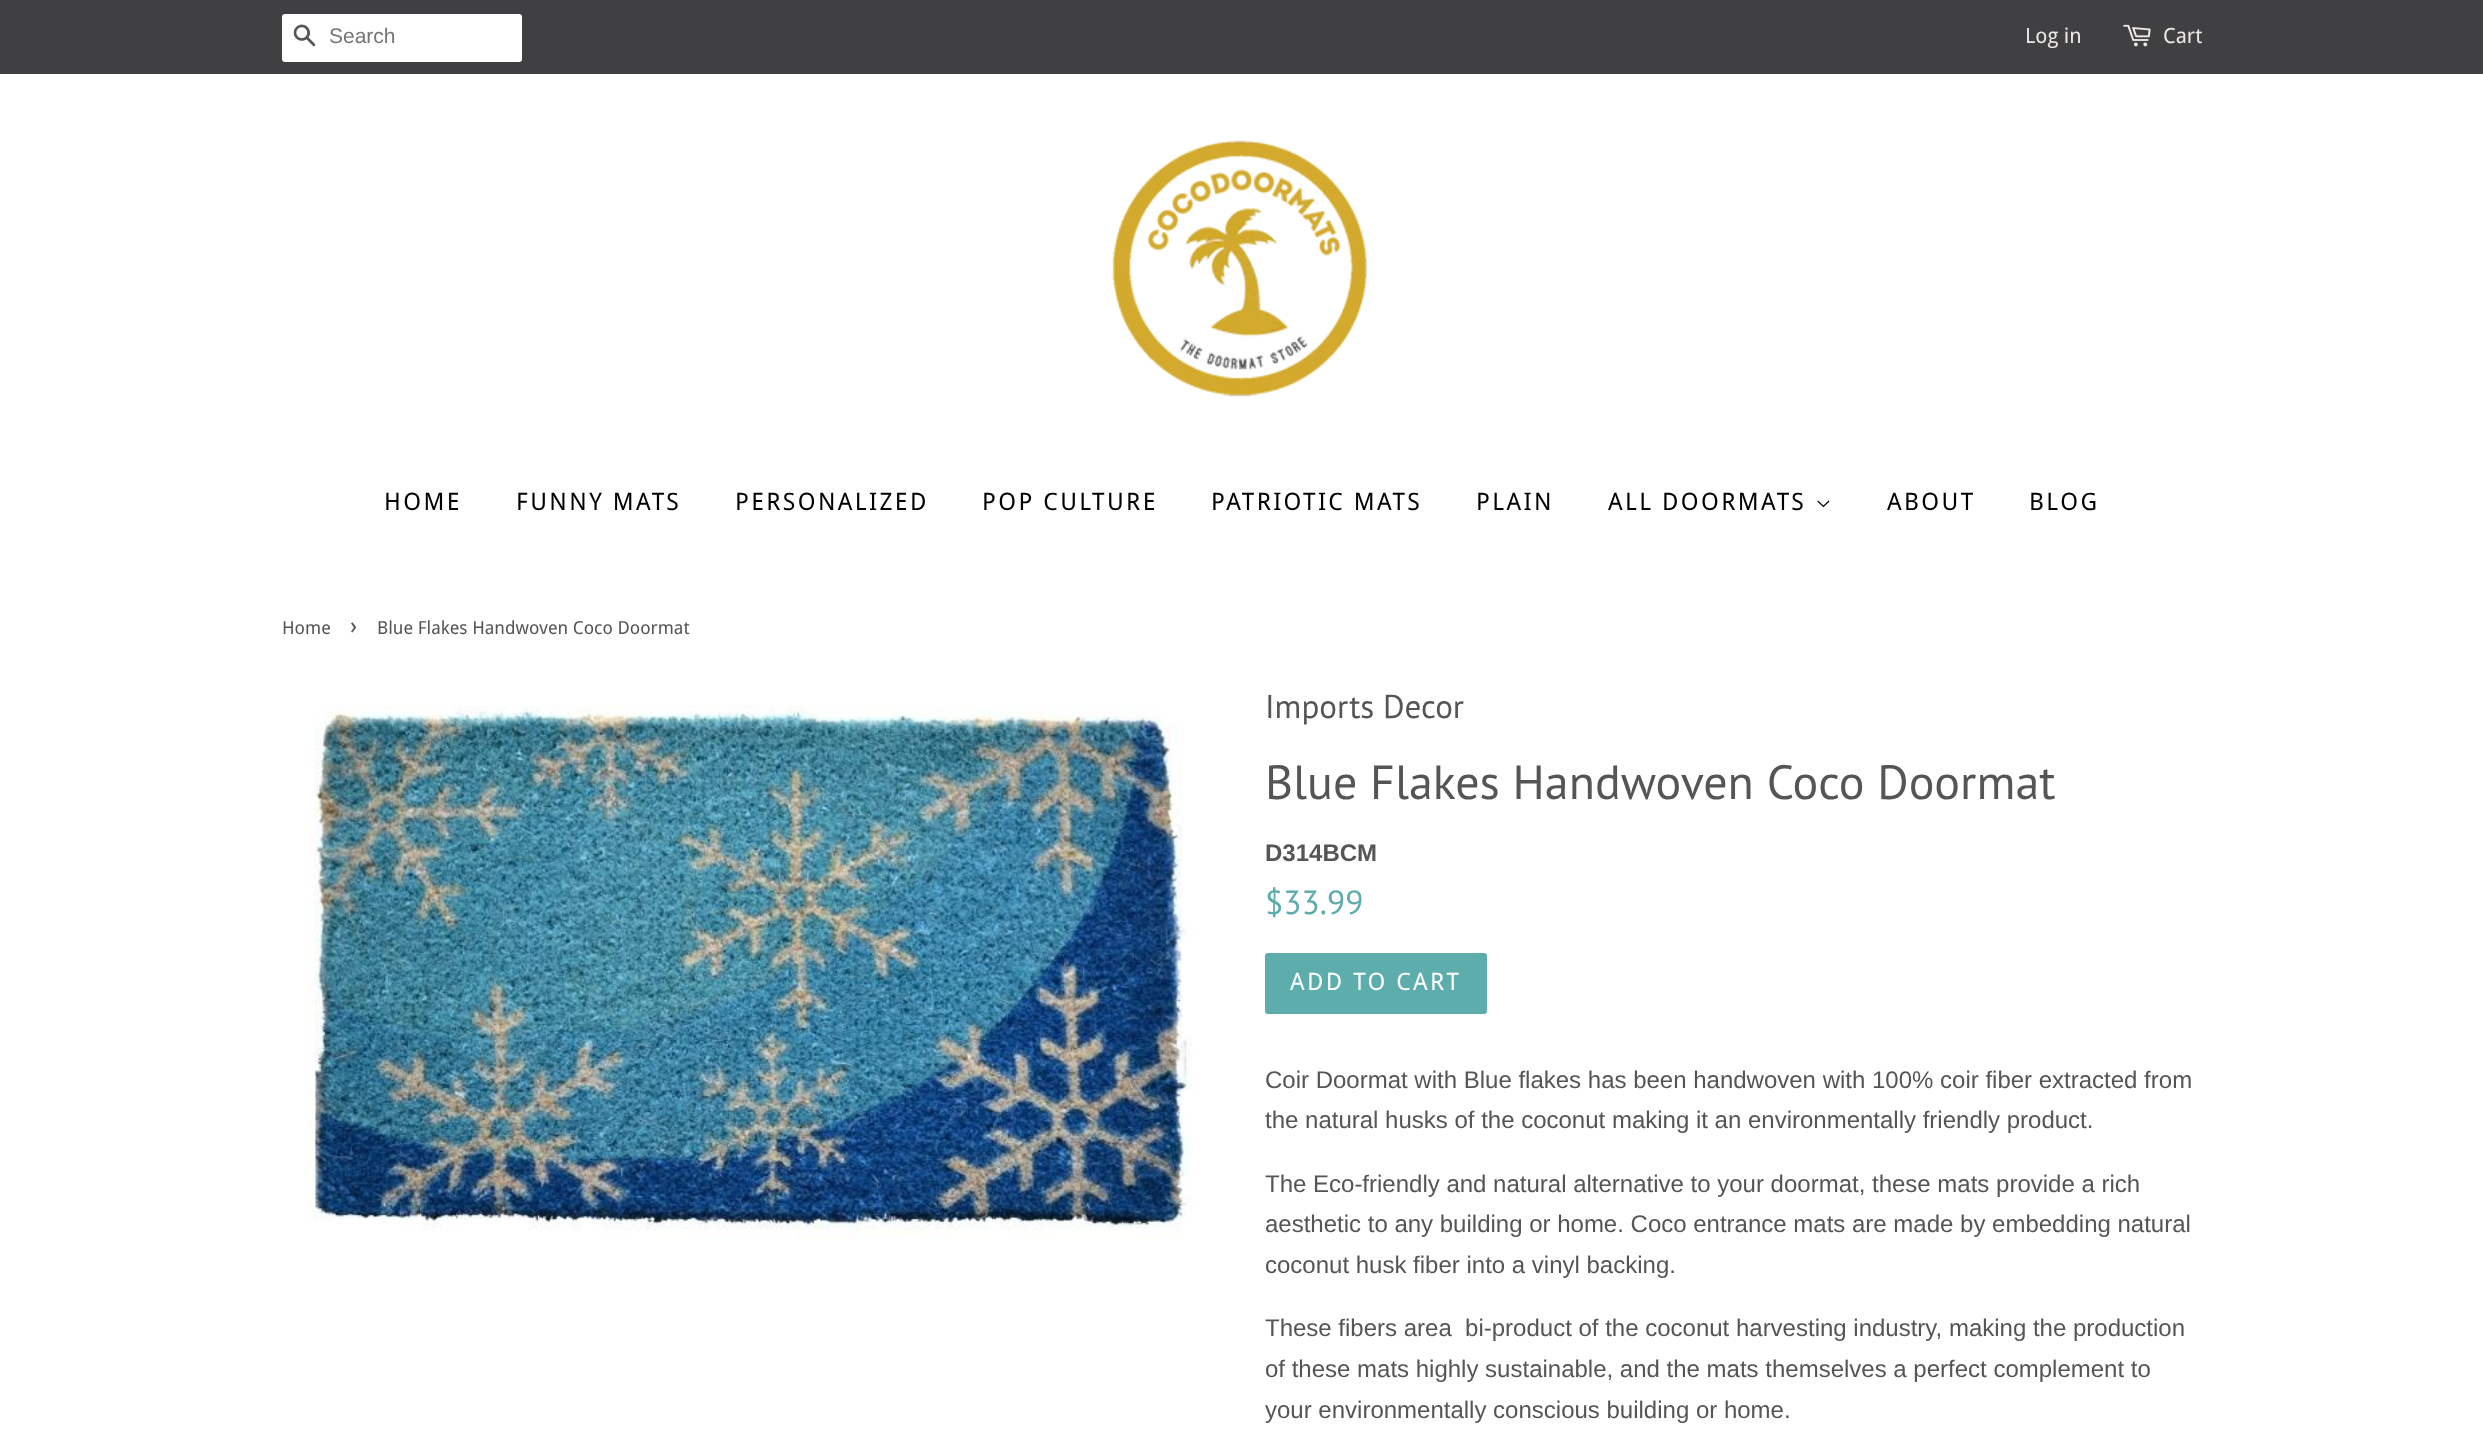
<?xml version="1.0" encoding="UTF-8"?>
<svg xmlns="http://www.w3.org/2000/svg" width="2483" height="1435">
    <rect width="100%" height="100%" fill="#FFFFFF"/>
    <rect x="0" y="0" width="2483" height="74" fill="#404042"/>
    <rect x="282" y="14" width="240" height="48" rx="3" fill="#FFFFFF"/>
    <image x="293" y="24" width="23" height="23" href="img_01.png"/>
    <text x="329" y="43" font-family="Liberation Sans" font-size="21" fill="#757575">Search</text>
    <text x="2025" y="43" font-family="Droid Sans" font-size="21" fill="#ECE6E6">Log in</text>
    <image x="2123" y="24" width="28" height="23" href="img_02.png"/>
    <text x="2163" y="43" font-family="Droid Sans" font-size="21" fill="#ECE6E6">Cart</text>
    <image x="1112" y="140" width="255" height="257" href="img_03.png"/>
    <text x="384" y="510" font-family="Droid Sans" font-size="24" letter-spacing="2.4" fill="#000000">HOME</text>
    <text x="516" y="510" font-family="Droid Sans" font-size="24" letter-spacing="2.4" fill="#000000">FUNNY MATS</text>
    <text x="735" y="510" font-family="Droid Sans" font-size="24" letter-spacing="2.4" fill="#000000">PERSONALIZED</text>
    <text x="982" y="510" font-family="Droid Sans" font-size="24" letter-spacing="2.4" fill="#000000">POP CULTURE</text>
    <text x="1211" y="510" font-family="Droid Sans" font-size="24" letter-spacing="2.4" fill="#000000">PATRIOTIC MATS</text>
    <text x="1476" y="510" font-family="Droid Sans" font-size="24" letter-spacing="2.4" fill="#000000">PLAIN</text>
    <text x="1608" y="510" font-family="Droid Sans" font-size="24" letter-spacing="2.4" fill="#000000">ALL DOORMATS</text>
    <image x="1817" y="500" width="13" height="8" href="img_04.png"/>
    <text x="1887" y="510" font-family="Droid Sans" font-size="24" letter-spacing="2.4" fill="#000000">ABOUT</text>
    <text x="2029" y="510" font-family="Droid Sans" font-size="24" letter-spacing="2.4" fill="#000000">BLOG</text>
    <text x="282" y="634" font-family="Droid Sans" font-size="18" fill="#555555">Home</text>
    <text x="350" y="634" font-family="Droid Sans" font-size="25" fill="#555555">›</text>
    <text x="377" y="634" font-family="Droid Sans" font-size="18" fill="#555555">Blue Flakes Handwoven Coco Doormat</text>
    <image x="304" y="705" width="889" height="536" href="img_05.png"/>
    <text x="1265" y="718" font-family="PT Sans" font-size="33" fill="#555555">Imports Decor</text>
    <text x="1265" y="799" font-family="PT Sans" font-size="48" fill="#555555">Blue Flakes Handwoven Coco Doormat</text>
    <text x="1265" y="861" font-family="Liberation Sans" font-size="24" font-weight="700" fill="#555555">D314BCM</text>
    <text x="1265" y="914" font-family="PT Sans" font-size="33.5" fill="#5DADAC">$33.99</text>
    <rect x="1265" y="953" width="222" height="61" rx="3" fill="#5DADAC"/>
    <text x="1290" y="990" font-family="Droid Sans" font-size="24" letter-spacing="2.4" fill="#FFFFFF">ADD TO CART</text>
    <text font-family="Liberation Sans" font-size="24" fill="#555555">
        <tspan x="1265" y="1088">Coir Doormat with Blue flakes has been handwoven with 100% coir fiber extracted from</tspan>
        <tspan x="1265" y="1128">the natural husks of the coconut making it an environmentally friendly product.</tspan>
    </text>
    <text font-family="Liberation Sans" font-size="24" fill="#555555">
        <tspan x="1265" y="1192">The Eco-friendly and natural alternative to your doormat, these mats provide a rich</tspan>
        <tspan x="1265" y="1232">aesthetic to any building or home. Coco entrance mats are made by embedding natural</tspan>
        <tspan x="1265" y="1273">coconut husk fiber into a vinyl backing.</tspan>
    </text>
    <text font-family="Liberation Sans" font-size="24" fill="#555555" xml:space="preserve"><tspan x="1265" y="1336">These fibers area  bi-product of the coconut harvesting industry, making the production</tspan><tspan x="1265" y="1377">of these mats highly sustainable, and the mats themselves a perfect complement to</tspan><tspan x="1265" y="1418">your environmentally conscious building or home.</tspan></text>
</svg>
